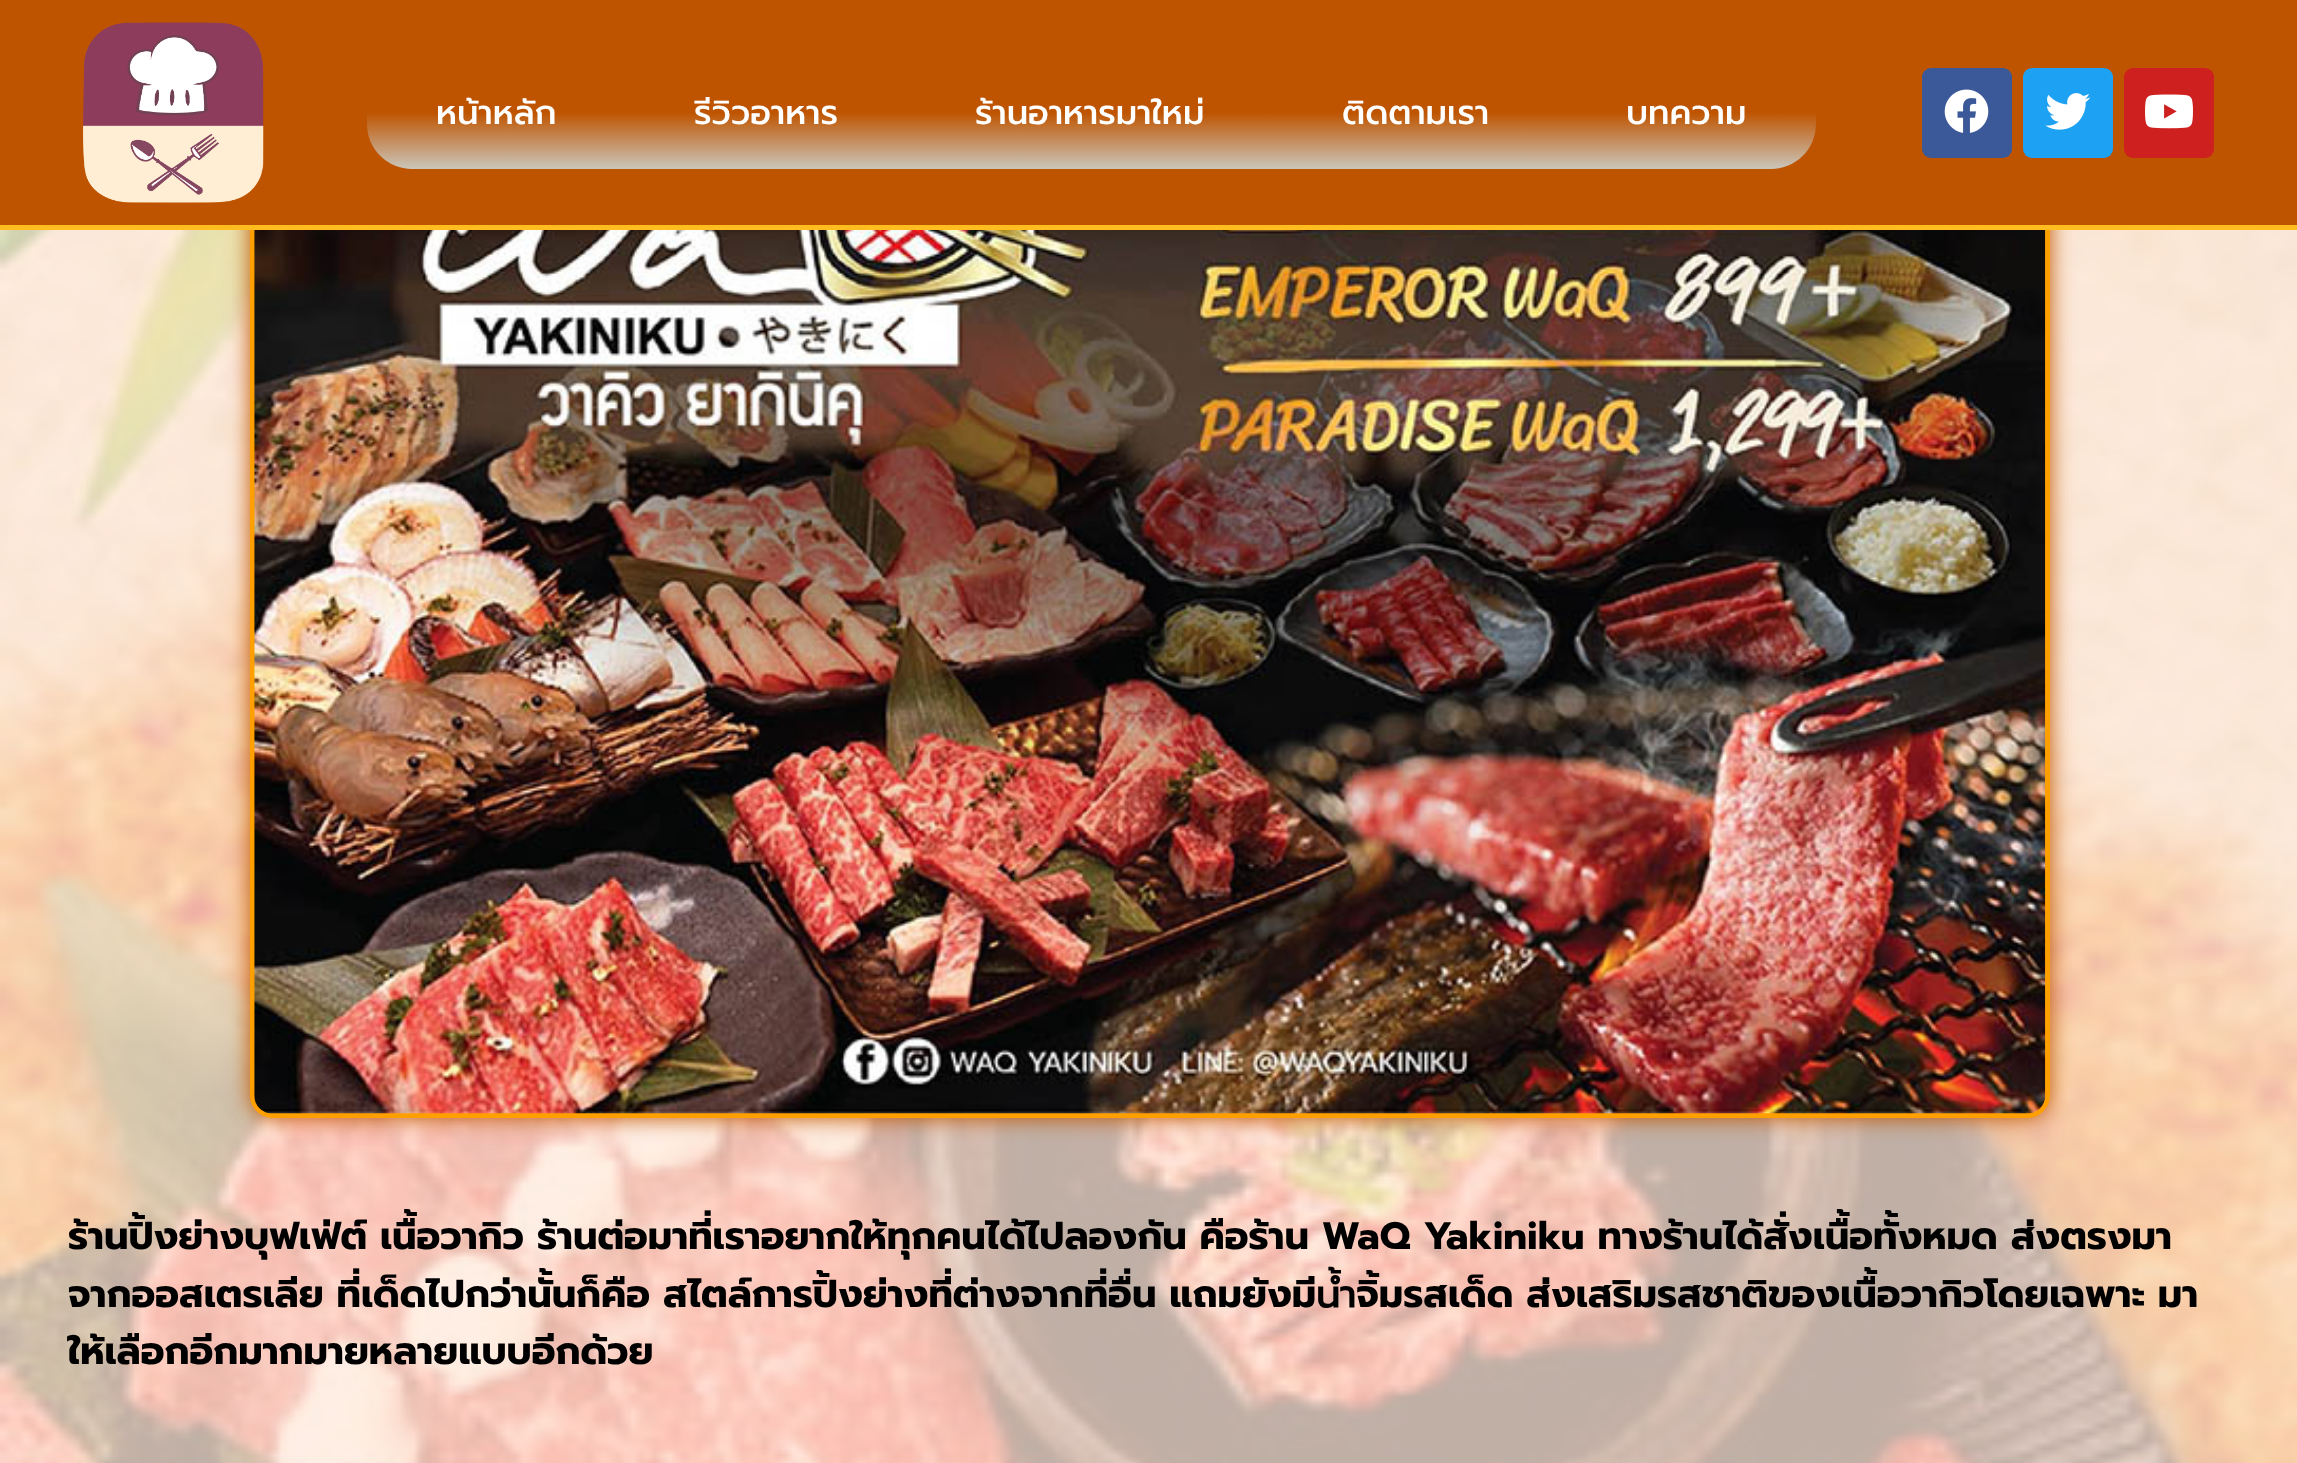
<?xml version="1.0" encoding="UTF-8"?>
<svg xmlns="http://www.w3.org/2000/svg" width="2297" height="1463">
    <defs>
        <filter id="blur1" x="-50%" y="-200%" width="200%" height="500%"><feGaussianBlur stdDeviation="11"/></filter>
        <linearGradient id="g1" gradientUnits="userSpaceOnUse" x1="1091" y1="56" x2="1091" y2="169"><stop offset="0.5" stop-color="#BF5400"/><stop offset="1" stop-color="#CAC6BB"/></linearGradient>
    </defs>
    <rect width="100%" height="100%" fill="#FFFFFF"/>
    <image x="0" y="230" width="2297" height="1233" href="img_05.png"/>
    <rect x="250" y="-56" width="1800" height="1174" rx="23" fill="#BF5400" filter="url(#blur1)"/>
    <rect x="252.5" y="-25.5" width="1795" height="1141" rx="20.5" fill="none" stroke="#FFA000" stroke-width="5"/>
    <rect x="0" y="0" width="2297" height="225" fill="#BF5400"/>
    <rect x="0" y="225" width="2297" height="5" fill="#FFBD1F"/>
    <image x="83" y="22" width="181" height="181" href="img_01.png"/>
    <rect x="367" y="56" width="1449" height="113" rx="45" fill="url(#g1)"/>
    <text x="436" y="124" font-family="Prompt" font-size="33.75" font-weight="500" fill="#FFFFFF">หน้าหลัก</text>
    <text x="694" y="124" font-family="Prompt" font-size="33.75" font-weight="500" fill="#FFFFFF">รีวิวอาหาร</text>
    <text x="975" y="124" font-family="Prompt" font-size="33.75" font-weight="500" fill="#FFFFFF">ร้านอาหารมาใหม่</text>
    <text x="1342" y="124" font-family="Prompt" font-size="33.75" font-weight="500" fill="#FFFFFF">ติดตามเรา</text>
    <text x="1626" y="124" font-family="Prompt" font-size="33.75" font-weight="500" fill="#FFFFFF">บทความ</text>
    <rect x="1922" y="68" width="90" height="90" rx="9" fill="#3B5998"/>
    <image x="1944" y="89" width="45" height="44" href="img_02.png"/>
    <rect x="2023" y="68" width="90" height="90" rx="9" fill="#1DA1F2"/>
    <image x="2045" y="93" width="46" height="37" href="img_03.png"/>
    <rect x="2124" y="68" width="90" height="90" rx="9" fill="#CD201F"/>
    <image x="2145" y="94" width="48" height="35" href="img_04.png"/>
    <image x="254" y="230" width="1792" height="884" href="img_06.png"/>
    <text font-family="Prompt" font-size="38.25" font-weight="700" fill="#000000">
        <tspan x="68" y="1249">ร้านปิ้งย่างบุฟเฟ่ต์ เนื้อวากิว ร้านต่อมาที่เราอยากให้ทุกคนได้ไปลองกัน คือร้าน WaQ Yakiniku ทางร้านได้สั่งเนื้อทั้งหมด ส่งตรงมา</tspan>
        <tspan x="68" y="1307">จากออสเตรเลีย ที่เด็ดไปกว่านั้นก็คือ สไตล์การปิ้งย่างที่ต่างจากที่อื่น แถมยังมีน้ำจิ้มรสเด็ด ส่งเสริมรสชาติของเนื้อวากิวโดยเฉพาะ มา</tspan>
        <tspan x="68" y="1364">ให้เลือกอีกมากมายหลายแบบอีกด้วย</tspan>
    </text>
</svg>
